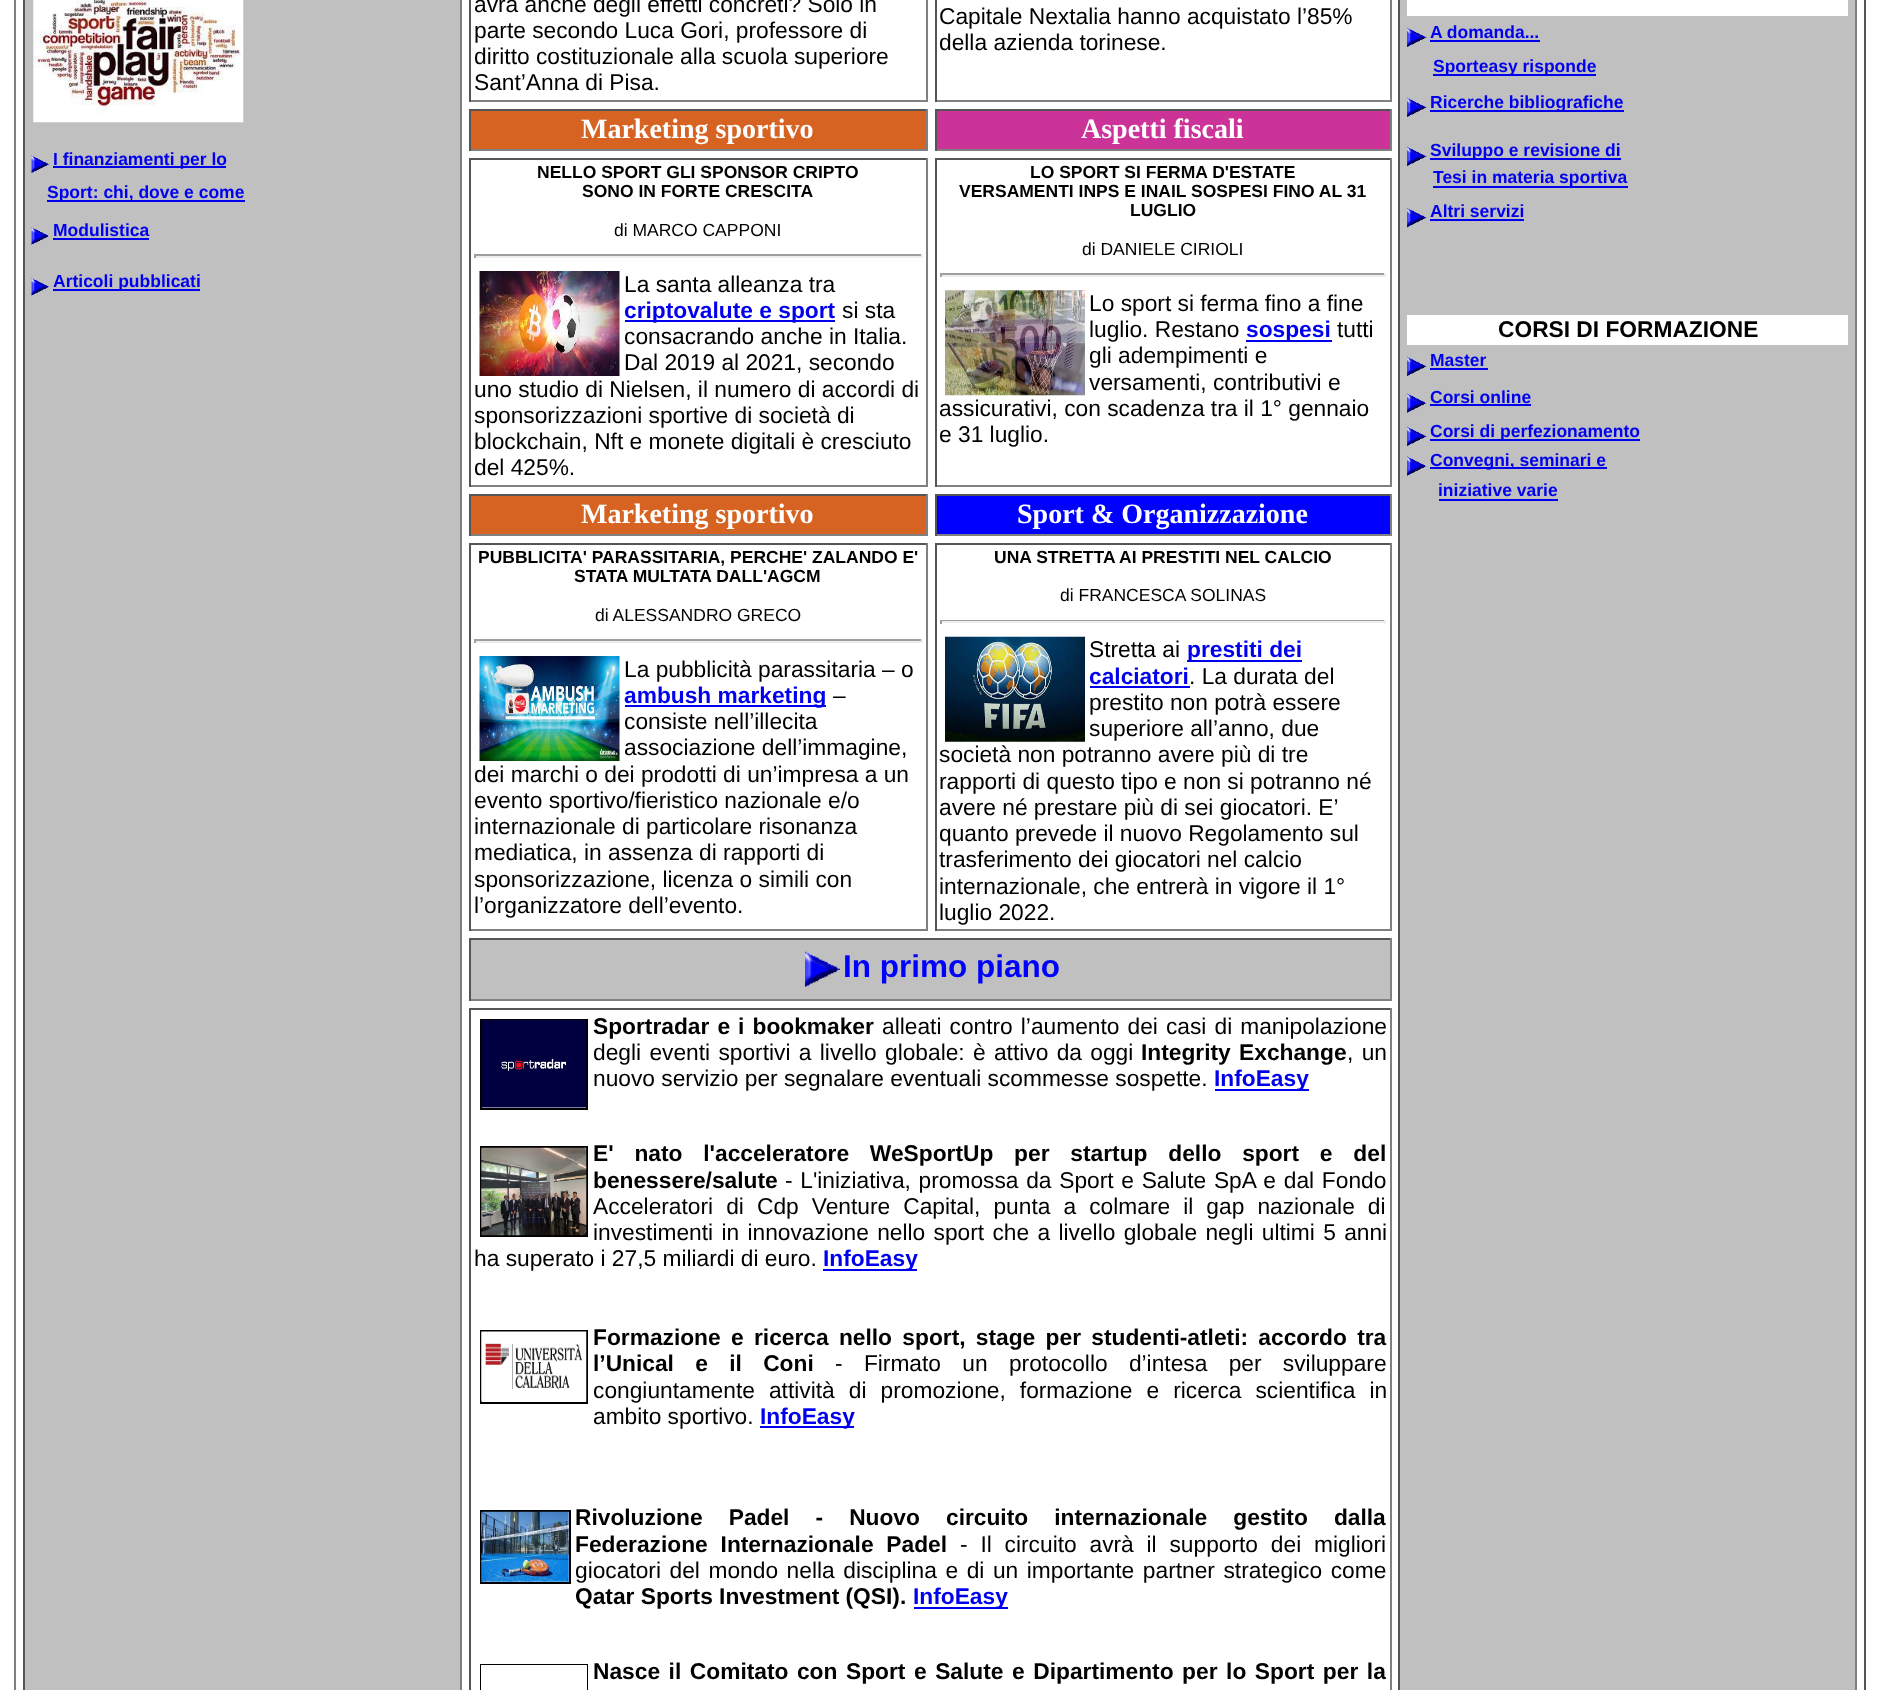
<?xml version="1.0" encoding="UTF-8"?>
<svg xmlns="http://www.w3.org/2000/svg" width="1878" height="1690">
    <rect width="100%" height="100%" fill="#FFFFFF"/>
    <rect x="1864" y="0" width="2" height="1690" fill="#555555"/>
    <rect x="14" y="0" width="2" height="1690" fill="#808080"/>
    <rect x="926" y="0" width="2" height="102" fill="#808080"/>
    <rect x="469" y="100" width="459" height="2" fill="#808080"/>
    <rect x="469" y="0" width="2" height="102" fill="#555555"/>
    <text font-family="Liberation Sans" font-size="22.75" fill="#000000">
        <tspan x="474" y="12">avrà anche degli effetti concreti? Solo in</tspan>
        <tspan x="474" y="38">parte secondo Luca Gori, professore di</tspan>
        <tspan x="474" y="64">diritto costituzionale alla scuola superiore</tspan>
        <tspan x="474" y="90">Sant’Anna di Pisa.</tspan>
    </text>
    <rect x="1390" y="0" width="2" height="102" fill="#808080"/>
    <rect x="935" y="100" width="456" height="2" fill="#808080"/>
    <rect x="935" y="0" width="2" height="102" fill="#555555"/>
    <text font-family="Liberation Sans" font-size="22.75" fill="#000000">
        <tspan x="939" y="24">Capitale Nextalia hanno acquistato l’85%</tspan>
        <tspan x="939" y="50">della azienda torinese.</tspan>
    </text>
    <rect x="25" y="0" width="435" height="1690" fill="#C0C0C0"/>
    <rect x="460" y="0" width="2" height="1690" fill="#808080"/>
    <rect x="23" y="0" width="2" height="1690" fill="#555555"/>
    <image x="33" y="0" width="211" height="123" href="img_01.png"/>
    <image x="31" y="155" width="18" height="18" href="img_02.png"/>
    <rect x="53" y="166" width="173" height="2" fill="#0000EE"/>
    <text x="53" y="165" font-family="Liberation Sans" font-size="17.5" font-weight="700" fill="#0000EE">I finanziamenti per lo</text>
    <rect x="47" y="200" width="198" height="2" fill="#0000EE"/>
    <text x="47" y="198" font-family="Liberation Sans" font-size="17.5" font-weight="700" fill="#0000EE">Sport: chi, dove e come</text>
    <image x="31" y="227" width="18" height="18" href="img_03.png"/>
    <text x="53" y="236" font-family="Liberation Sans" font-size="17.5" font-weight="700" fill="#0000EE">Modulistica</text>
    <rect x="53" y="238" width="96" height="2" fill="#0000EE"/>
    <image x="31" y="278" width="18" height="18" href="img_04.png"/>
    <rect x="53" y="289" width="147" height="2" fill="#0000EE"/>
    <text x="53" y="287" font-family="Liberation Sans" font-size="17.5" font-weight="700" fill="#0000EE">Articoli pubblicati</text>
    <rect x="1400" y="0" width="455" height="1690" fill="#C0C0C0"/>
    <rect x="1855" y="0" width="2" height="1690" fill="#808080"/>
    <rect x="1398" y="0" width="2" height="1690" fill="#555555"/>
    <rect x="1407" y="0" width="441" height="16" fill="#FFFFFF"/>
    <image x="1407" y="27" width="20" height="20" href="img_05.png"/>
    <text x="1430" y="38" font-family="Liberation Sans" font-size="17.5" font-weight="700" fill="#0000EE">A domanda...</text>
    <rect x="1430" y="40" width="110" height="2" fill="#0000EE"/>
    <rect x="1433" y="74" width="163" height="2" fill="#0000EE"/>
    <text x="1433" y="72" font-family="Liberation Sans" font-size="17.5" font-weight="700" fill="#0000EE">Sporteasy risponde</text>
    <image x="1407" y="97" width="20" height="20" href="img_05.png"/>
    <rect x="1430" y="110" width="194" height="2" fill="#0000EE"/>
    <text x="1430" y="108" font-family="Liberation Sans" font-size="17.5" font-weight="700" fill="#0000EE">Ricerche bibliografiche</text>
    <image x="1407" y="146" width="20" height="20" href="img_05.png"/>
    <rect x="1430" y="158" width="191" height="2" fill="#0000EE"/>
    <text x="1430" y="156" font-family="Liberation Sans" font-size="17.5" font-weight="700" fill="#0000EE">Sviluppo e revisione di</text>
    <rect x="1433" y="186" width="195" height="2" fill="#0000EE"/>
    <text x="1433" y="183" font-family="Liberation Sans" font-size="17.5" font-weight="700" fill="#0000EE">Tesi in materia sportiva</text>
    <image x="1407" y="208" width="20" height="20" href="img_06.png"/>
    <text x="1430" y="217" font-family="Liberation Sans" font-size="17.5" font-weight="700" fill="#0000EE">Altri servizi</text>
    <rect x="1430" y="219" width="94" height="2" fill="#0000EE"/>
    <rect x="1407" y="315" width="441" height="30" fill="#FFFFFF"/>
    <text x="1498" y="337" font-family="Liberation Sans" font-size="22.75" font-weight="700" fill="#000000">CORSI DI FORMAZIONE</text>
    <image x="1407" y="356" width="20" height="20" href="img_05.png"/>
    <text x="1430" y="366" font-family="Liberation Sans" font-size="17.5" font-weight="700" fill="#0000EE">Master</text>
    <rect x="1430" y="368" width="58" height="2" fill="#0000EE"/>
    <image x="1407" y="393" width="20" height="20" href="img_07.png"/>
    <text x="1430" y="403" font-family="Liberation Sans" font-size="17.5" font-weight="700" fill="#0000EE">Corsi online</text>
    <rect x="1430" y="404" width="101" height="2" fill="#0000EE"/>
    <image x="1407" y="426" width="20" height="20" href="img_05.png"/>
    <rect x="1430" y="439" width="210" height="2" fill="#0000EE"/>
    <text x="1430" y="437" font-family="Liberation Sans" font-size="17.5" font-weight="700" fill="#0000EE">Corsi di perfezionamento</text>
    <image x="1407" y="456" width="20" height="20" href="img_07.png"/>
    <rect x="1430" y="467" width="177" height="2" fill="#0000EE"/>
    <text x="1430" y="466" font-family="Liberation Sans" font-size="17.5" font-weight="700" fill="#0000EE">Convegni, seminari e</text>
    <text x="1438" y="496" font-family="Liberation Sans" font-size="17.5" font-weight="700" fill="#0000EE">iniziative varie</text>
    <rect x="1439" y="499" width="119" height="2" fill="#0000EE"/>
    <rect x="471" y="111" width="455" height="38" fill="#D66321"/>
    <rect x="469" y="109" width="459" height="2" fill="#555555"/>
    <rect x="926" y="109" width="2" height="42" fill="#808080"/>
    <rect x="469" y="149" width="459" height="2" fill="#808080"/>
    <rect x="469" y="109" width="2" height="42" fill="#555555"/>
    <text x="581" y="138" font-family="Liberation Serif" font-size="28" font-weight="700" fill="#FFFFFF">Marketing sportivo</text>
    <rect x="937" y="111" width="453" height="38" fill="#CC3399"/>
    <rect x="935" y="109" width="456" height="2" fill="#555555"/>
    <rect x="1390" y="109" width="2" height="42" fill="#808080"/>
    <rect x="935" y="149" width="456" height="2" fill="#808080"/>
    <rect x="935" y="109" width="2" height="42" fill="#555555"/>
    <text x="1081" y="138" font-family="Liberation Serif" font-size="28" font-weight="700" fill="#FFFFFF">Aspetti fiscali</text>
    <rect x="469" y="158" width="459" height="2" fill="#555555"/>
    <rect x="926" y="158" width="2" height="329" fill="#808080"/>
    <rect x="469" y="485" width="459" height="2" fill="#808080"/>
    <rect x="469" y="158" width="2" height="329" fill="#555555"/>
    <text x="537" y="178" font-family="Liberation Sans" font-size="17.5" font-weight="700" fill="#000000">NELLO SPORT GLI SPONSOR CRIPTO</text>
    <text x="582" y="197" font-family="Liberation Sans" font-size="17.5" font-weight="700" fill="#000000">SONO IN FORTE CRESCITA</text>
    <text x="614" y="236" font-family="Liberation Sans" font-size="17.5" fill="#000000">di MARCO CAPPONI</text>
    <rect x="474" y="254" width="448" height="2" fill="#9F9F9F"/>
    <rect x="921" y="254" width="2" height="4" fill="#EEEEEE"/>
    <rect x="474" y="256" width="448" height="2" fill="#EEEEEE"/>
    <rect x="474" y="254" width="2" height="4" fill="#9F9F9F"/>
    <image x="479" y="271" width="141" height="105" href="img_08.png"/>
    <text x="624" y="292" font-family="Liberation Sans" font-size="22.75" fill="#000000">La santa alleanza tra</text>
    <rect x="625" y="320" width="210" height="2" fill="#0000EE"/>
    <text x="624" y="318" font-family="Liberation Sans" font-size="22.75" font-weight="700" fill="#0000EE">criptovalute e sport</text>
    <text x="842" y="318" font-family="Liberation Sans" font-size="22.75" fill="#000000">si sta</text>
    <text font-family="Liberation Sans" font-size="22.75" fill="#000000">
        <tspan x="624" y="344">consacrando anche in Italia.</tspan>
        <tspan x="624" y="370">Dal 2019 al 2021, secondo</tspan>
    </text>
    <text font-family="Liberation Sans" font-size="22.75" fill="#000000">
        <tspan x="474" y="397">uno studio di Nielsen, il numero di accordi di</tspan>
        <tspan x="474" y="423">sponsorizzazioni sportive di società di</tspan>
        <tspan x="474" y="449">blockchain, Nft e monete digitali è cresciuto</tspan>
        <tspan x="474" y="475">del 425%.</tspan>
    </text>
    <rect x="935" y="158" width="456" height="2" fill="#555555"/>
    <rect x="1390" y="158" width="2" height="329" fill="#808080"/>
    <rect x="935" y="485" width="456" height="2" fill="#808080"/>
    <rect x="935" y="158" width="2" height="329" fill="#555555"/>
    <text x="1030" y="178" font-family="Liberation Sans" font-size="17.5" font-weight="700" fill="#000000">LO SPORT SI FERMA D'ESTATE</text>
    <text x="959" y="197" font-family="Liberation Sans" font-size="17.5" font-weight="700" fill="#000000">VERSAMENTI INPS E INAIL SOSPESI FINO AL 31</text>
    <text x="1130" y="216" font-family="Liberation Sans" font-size="17.5" font-weight="700" fill="#000000">LUGLIO</text>
    <text x="1082" y="255" font-family="Liberation Sans" font-size="17.5" fill="#000000">di DANIELE CIRIOLI</text>
    <rect x="940" y="273" width="446" height="2" fill="#9F9F9F"/>
    <rect x="1384" y="273" width="2" height="4" fill="#EEEEEE"/>
    <rect x="940" y="275" width="446" height="2" fill="#EEEEEE"/>
    <rect x="940" y="273" width="2" height="4" fill="#9F9F9F"/>
    <image x="945" y="290" width="140" height="106" href="img_09.png"/>
    <text font-family="Liberation Sans" font-size="22.75" fill="#000000">
        <tspan x="1089" y="311">Lo sport si ferma fino a fine</tspan>
        <tspan x="1089" y="337">luglio. Restano</tspan>
    </text>
    <rect x="1246" y="340" width="86" height="2" fill="#0000EE"/>
    <text x="1246" y="337" font-family="Liberation Sans" font-size="22.75" font-weight="700" fill="#0000EE">sospesi</text>
    <text x="1337" y="337" font-family="Liberation Sans" font-size="22.75" fill="#000000">tutti</text>
    <text font-family="Liberation Sans" font-size="22.75" fill="#000000">
        <tspan x="1089" y="363">gli adempimenti e</tspan>
        <tspan x="1089" y="390">versamenti, contributivi e</tspan>
    </text>
    <text font-family="Liberation Sans" font-size="22.75" fill="#000000">
        <tspan x="939" y="416">assicurativi, con scadenza tra il 1° gennaio</tspan>
        <tspan x="939" y="442">e 31 luglio.</tspan>
    </text>
    <rect x="471" y="496" width="455" height="38" fill="#D66321"/>
    <rect x="469" y="494" width="459" height="2" fill="#555555"/>
    <rect x="926" y="494" width="2" height="42" fill="#808080"/>
    <rect x="469" y="534" width="459" height="2" fill="#808080"/>
    <rect x="469" y="494" width="2" height="42" fill="#555555"/>
    <text x="581" y="523" font-family="Liberation Serif" font-size="28" font-weight="700" fill="#FFFFFF">Marketing sportivo</text>
    <rect x="937" y="496" width="453" height="38" fill="#0000FF"/>
    <rect x="935" y="494" width="456" height="2" fill="#555555"/>
    <rect x="1390" y="494" width="2" height="42" fill="#808080"/>
    <rect x="935" y="534" width="456" height="2" fill="#808080"/>
    <rect x="935" y="494" width="2" height="42" fill="#555555"/>
    <text x="1017" y="523" font-family="Liberation Serif" font-size="28" font-weight="700" fill="#FFFFFF">Sport &amp; Organizzazione</text>
    <rect x="469" y="543" width="459" height="2" fill="#555555"/>
    <rect x="926" y="543" width="2" height="388" fill="#808080"/>
    <rect x="469" y="929" width="459" height="2" fill="#808080"/>
    <rect x="469" y="543" width="2" height="388" fill="#555555"/>
    <text x="478" y="563" font-family="Liberation Sans" font-size="17.5" font-weight="700" fill="#000000">PUBBLICITA' PARASSITARIA, PERCHE' ZALANDO E'</text>
    <text x="574" y="582" font-family="Liberation Sans" font-size="17.5" font-weight="700" fill="#000000">STATA MULTATA DALL'AGCM</text>
    <text x="595" y="621" font-family="Liberation Sans" font-size="17.5" fill="#000000">di ALESSANDRO GRECO</text>
    <rect x="474" y="639" width="448" height="2" fill="#9F9F9F"/>
    <rect x="921" y="639" width="2" height="4" fill="#EEEEEE"/>
    <rect x="474" y="641" width="448" height="2" fill="#EEEEEE"/>
    <rect x="474" y="639" width="2" height="4" fill="#9F9F9F"/>
    <image x="479" y="656" width="141" height="105" href="img_10.png"/>
    <text x="624" y="677" font-family="Liberation Sans" font-size="22.75" fill="#000000">La pubblicità parassitaria – o</text>
    <rect x="625" y="705" width="201" height="2" fill="#0000EE"/>
    <text x="624" y="703" font-family="Liberation Sans" font-size="22.75" font-weight="700" fill="#0000EE">ambush marketing</text>
    <text x="833" y="703" font-family="Liberation Sans" font-size="22.75" fill="#000000">–</text>
    <text font-family="Liberation Sans" font-size="22.75" fill="#000000">
        <tspan x="624" y="729">consiste nell’illecita</tspan>
        <tspan x="624" y="755">associazione dell’immagine,</tspan>
    </text>
    <text font-family="Liberation Sans" font-size="22.75" fill="#000000">
        <tspan x="474" y="782">dei marchi o dei prodotti di un’impresa a un</tspan>
        <tspan x="474" y="808">evento sportivo/fieristico nazionale e/o</tspan>
        <tspan x="474" y="834">internazionale di particolare risonanza</tspan>
        <tspan x="474" y="860">mediatica, in assenza di rapporti di</tspan>
        <tspan x="474" y="887">sponsorizzazione, licenza o simili con</tspan>
        <tspan x="474" y="913">l’organizzatore dell’evento.</tspan>
    </text>
    <rect x="935" y="543" width="456" height="2" fill="#555555"/>
    <rect x="1390" y="543" width="2" height="388" fill="#808080"/>
    <rect x="935" y="929" width="456" height="2" fill="#808080"/>
    <rect x="935" y="543" width="2" height="388" fill="#555555"/>
    <text x="994" y="563" font-family="Liberation Sans" font-size="17.5" font-weight="700" fill="#000000">UNA STRETTA AI PRESTITI NEL CALCIO</text>
    <text x="1060" y="601" font-family="Liberation Sans" font-size="17.5" fill="#000000">di FRANCESCA SOLINAS</text>
    <rect x="940" y="620" width="446" height="1" fill="#9F9F9F"/>
    <rect x="1384" y="620" width="2" height="4" fill="#EEEEEE"/>
    <rect x="940" y="621" width="446" height="2" fill="#EEEEEE"/>
    <rect x="940" y="620" width="2" height="4" fill="#9F9F9F"/>
    <image x="945" y="636" width="140" height="106" href="img_11.png"/>
    <text x="1089" y="657" font-family="Liberation Sans" font-size="22.75" fill="#000000">Stretta ai</text>
    <rect x="1187" y="660" width="115" height="2" fill="#0000EE"/>
    <text x="1187" y="657" font-family="Liberation Sans" font-size="22.75" font-weight="700" fill="#0000EE">prestiti dei</text>
    <text x="1089" y="684" font-family="Liberation Sans" font-size="22.75" font-weight="700" fill="#0000EE">calciatori</text>
    <rect x="1090" y="686" width="100" height="2" fill="#0000EE"/>
    <text x="1189" y="684" font-family="Liberation Sans" font-size="22.75" fill="#000000">. La durata del</text>
    <text font-family="Liberation Sans" font-size="22.75" fill="#000000">
        <tspan x="1089" y="710">prestito non potrà essere</tspan>
        <tspan x="1089" y="736">superiore all’anno, due</tspan>
    </text>
    <text font-family="Liberation Sans" font-size="22.75" fill="#000000">
        <tspan x="939" y="762">società non potranno avere più di tre</tspan>
        <tspan x="939" y="789">rapporti di questo tipo e non si potranno né</tspan>
        <tspan x="939" y="815">avere né prestare più di sei giocatori. E’</tspan>
        <tspan x="939" y="841">quanto prevede il nuovo Regolamento sul</tspan>
        <tspan x="939" y="867">trasferimento dei giocatori nel calcio</tspan>
        <tspan x="939" y="894">internazionale, che entrerà in vigore il 1°</tspan>
        <tspan x="939" y="920">luglio 2022.</tspan>
    </text>
    <rect x="471" y="940" width="919" height="59" fill="#C0C0C0"/>
    <rect x="469" y="938" width="922" height="2" fill="#555555"/>
    <rect x="1390" y="938" width="2" height="63" fill="#808080"/>
    <rect x="469" y="999" width="922" height="2" fill="#808080"/>
    <rect x="469" y="938" width="2" height="63" fill="#555555"/>
    <image x="805" y="951" width="35" height="36" href="img_12.png"/>
    <text x="843" y="977" font-family="Liberation Sans" font-size="31.5" font-weight="700" fill="#0000FF">In primo piano</text>
    <rect x="469" y="1008" width="922" height="2" fill="#555555"/>
    <rect x="1390" y="1008" width="2" height="682" fill="#808080"/>
    <rect x="469" y="1008" width="2" height="682" fill="#555555"/>
    <rect x="481" y="1020" width="106" height="89" fill="none" stroke="#000000" stroke-width="2"/>
    <image x="481" y="1020" width="106" height="88" href="img_13.png"/>
    <text x="593" y="1034" word-spacing="1.75" font-family="Liberation Sans" font-size="22.75" font-weight="700" fill="#000000">Sportradar e i bookmaker</text>
    <text x="882" y="1034" word-spacing="1.75" font-family="Liberation Sans" font-size="22.75" fill="#000000">alleati contro l’aumento dei casi di manipolazione</text>
    <text x="593" y="1060" word-spacing="2" font-family="Liberation Sans" font-size="22.75" fill="#000000">degli eventi sportivi a livello globale: è attivo da oggi</text>
    <text x="1141" y="1060" word-spacing="2" font-family="Liberation Sans" font-size="22.75" font-weight="700" fill="#000000">Integrity Exchange</text>
    <text x="1347" y="1060" word-spacing="2" font-family="Liberation Sans" font-size="22.75" fill="#000000">, un</text>
    <text x="593" y="1086" font-family="Liberation Sans" font-size="22.75" fill="#000000">nuovo servizio per segnalare eventuali scommesse sospette.</text>
    <rect x="1215" y="1089" width="94" height="2" fill="#0000EE"/>
    <text x="1214" y="1086" font-family="Liberation Sans" font-size="22.75" font-weight="700" fill="#0000EE">InfoEasy</text>
    <rect x="481" y="1147" width="106" height="89" fill="none" stroke="#000000" stroke-width="2"/>
    <image x="481" y="1147" width="106" height="89" href="img_14.png"/>
    <text font-family="Liberation Sans" font-size="22.75" font-weight="700" fill="#000000">
        <tspan x="593" y="1161" word-spacing="14.5">E' nato l'acceleratore WeSportUp per startup dello sport e del</tspan>
        <tspan x="593" y="1188">benessere/salute</tspan>
    </text>
    <text x="785" y="1188" word-spacing="1.4" font-family="Liberation Sans" font-size="22.75" fill="#000000">- L'iniziativa, promossa da Sport e Salute SpA e dal Fondo</text>
    <text font-family="Liberation Sans" font-size="22.75" fill="#000000">
        <tspan x="593" y="1214" word-spacing="6.75">Acceleratori di Cdp Venture Capital, punta a colmare il gap nazionale di</tspan>
        <tspan x="593" y="1240" word-spacing="2">investimenti in innovazione nello sport che a livello globale negli ultimi 5 anni</tspan>
    </text>
    <text x="474" y="1266" font-family="Liberation Sans" font-size="22.75" fill="#000000">ha superato i 27,5 miliardi di euro.</text>
    <rect x="823" y="1269" width="94" height="2" fill="#0000EE"/>
    <text x="823" y="1266" font-family="Liberation Sans" font-size="22.75" font-weight="700" fill="#0000EE">InfoEasy</text>
    <rect x="481" y="1331" width="106" height="72" fill="none" stroke="#000000" stroke-width="2"/>
    <image x="481" y="1331" width="106" height="71" href="img_15.png"/>
    <text font-family="Liberation Sans" font-size="22.75" font-weight="700" fill="#000000">
        <tspan x="593" y="1345" word-spacing="4">Formazione e ricerca nello sport, stage per studenti-atleti: accordo tra</tspan>
        <tspan x="593" y="1371" word-spacing="15">l’Unical e il Coni</tspan>
    </text>
    <text x="835" y="1371" word-spacing="15" font-family="Liberation Sans" font-size="22.75" fill="#000000">- Firmato un protocollo d’intesa per sviluppare</text>
    <text font-family="Liberation Sans" font-size="22.75" fill="#000000">
        <tspan x="593" y="1398" word-spacing="7.75">congiuntamente attività di promozione, formazione e ricerca scientifica in</tspan>
        <tspan x="593" y="1424">ambito sportivo.</tspan>
    </text>
    <rect x="760" y="1426" width="94" height="2" fill="#0000EE"/>
    <text x="760" y="1424" font-family="Liberation Sans" font-size="22.75" font-weight="700" fill="#0000EE">InfoEasy</text>
    <rect x="481" y="1511" width="89" height="72" fill="none" stroke="#000000" stroke-width="2"/>
    <image x="481" y="1511" width="88" height="71" href="img_16.png"/>
    <text font-family="Liberation Sans" font-size="22.75" font-weight="700" fill="#000000">
        <tspan x="575" y="1525" word-spacing="19.75">Rivoluzione Padel - Nuovo circuito internazionale gestito dalla</tspan>
        <tspan x="575" y="1552" word-spacing="6.5">Federazione Internazionale Padel</tspan>
    </text>
    <text x="960" y="1552" word-spacing="6.5" font-family="Liberation Sans" font-size="22.75" fill="#000000">- Il circuito avrà il supporto dei migliori</text>
    <text x="575" y="1578" word-spacing="2.25" font-family="Liberation Sans" font-size="22.75" fill="#000000">giocatori del mondo nella disciplina e di un importante partner strategico come</text>
    <text x="575" y="1604" font-family="Liberation Sans" font-size="22.75" font-weight="700" fill="#000000">Qatar Sports Investment (QSI).</text>
    <rect x="914" y="1607" width="94" height="2" fill="#0000EE"/>
    <text x="913" y="1604" font-family="Liberation Sans" font-size="22.75" font-weight="700" fill="#0000EE">InfoEasy</text>
    <rect x="481" y="1665" width="106" height="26" fill="none" stroke="#000000" stroke-width="2"/>
    <rect x="481" y="1665" width="106" height="25" fill="#FFFFFF"/>
    <text x="593" y="1679" word-spacing="2.25" font-family="Liberation Sans" font-size="22.75" font-weight="700" fill="#000000">Nasce il Comitato con Sport e Salute e Dipartimento per lo Sport per la</text>
</svg>
